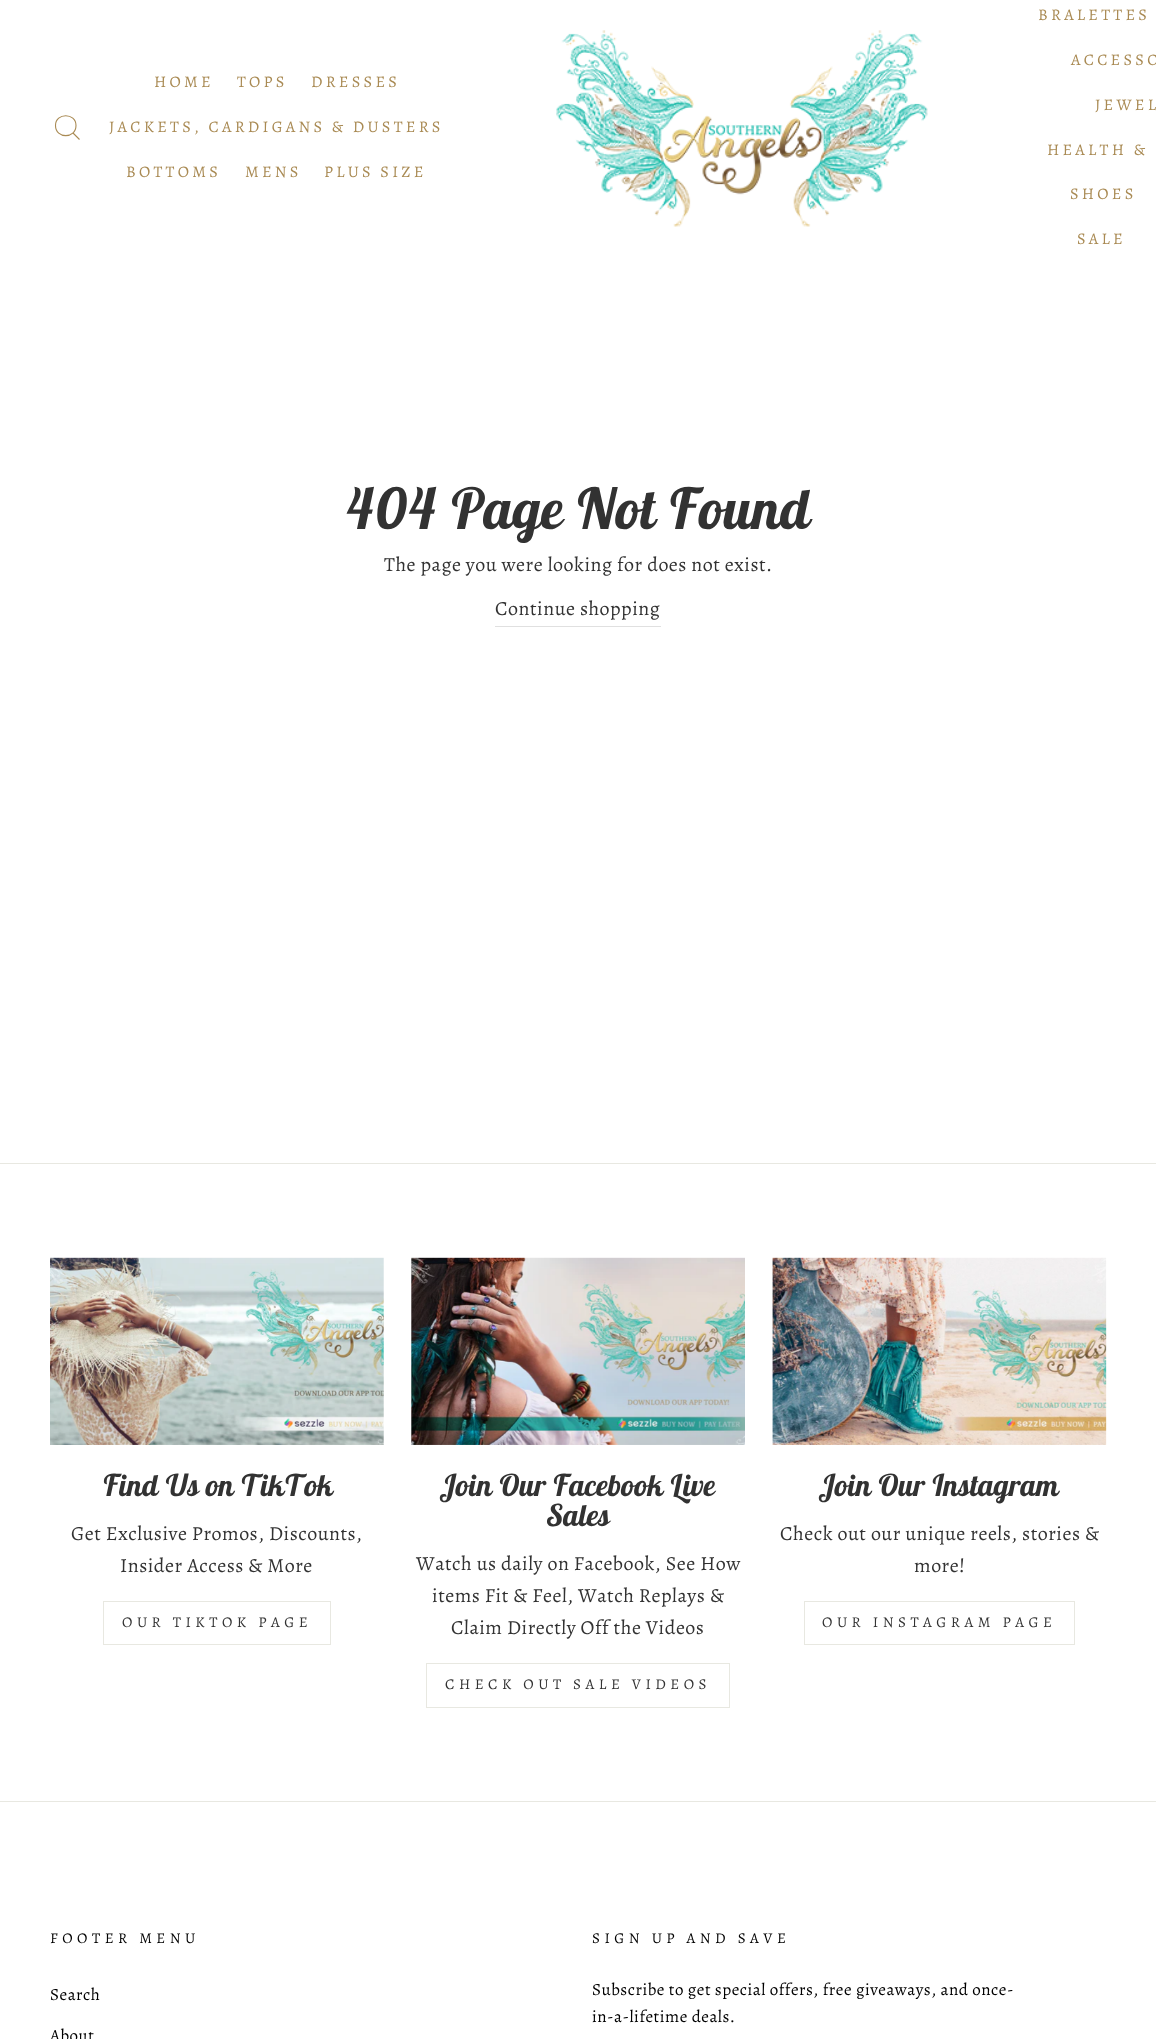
<?xml version="1.0" encoding="UTF-8"?>
<svg xmlns="http://www.w3.org/2000/svg" width="1156" height="2039">
    <style>*{font-kerning:none!important;font-variant-ligatures:none!important}</style>
    <defs>
        <filter id="blur1" x="-50%" y="-200%" width="200%" height="500%"><feGaussianBlur stdDeviation="0.5"/></filter>
    </defs>
    <rect width="100%" height="100%" fill="#FFFFFF"/>
    <rect x="0" y="-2" width="1156" height="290" fill="#000000" fill-opacity="0.2" filter="url(#blur1)"/>
    <rect x="0" y="0" width="1156" height="288" fill="#FFFFFF"/>
    <path d="M 76 125.5 C 76 139 55.5 139 55.5 125.5 C 55.5 112.5 76 112.5 76 125.5 Z M 79.5 139.5 L 73 133" fill="none" stroke="#A98A53" stroke-width="1.1"/>
    <text x="154" y="87" font-family="Alegreya" font-size="16.25" letter-spacing="3.25" fill="#A98A53">HOME</text>
    <text x="237" y="87" font-family="Alegreya" font-size="16.25" letter-spacing="3.25" fill="#A98A53">TOPS</text>
    <text x="311" y="87" font-family="Alegreya" font-size="16.25" letter-spacing="3.25" fill="#A98A53">DRESSES</text>
    <text x="109" y="132" font-family="Alegreya" font-size="16.25" letter-spacing="3.25" fill="#A98A53">JACKETS, CARDIGANS &amp; DUSTERS</text>
    <text x="126" y="177" font-family="Alegreya" font-size="16.25" letter-spacing="3.25" fill="#A98A53">BOTTOMS</text>
    <text x="245" y="177" font-family="Alegreya" font-size="16.25" letter-spacing="3.25" fill="#A98A53">MENS</text>
    <text x="324" y="177" font-family="Alegreya" font-size="16.25" letter-spacing="3.25" fill="#A98A53">PLUS SIZE</text>
    <image x="556" y="30" width="372" height="197" href="img_01.png"/>
    <text x="1038" y="20" font-family="Alegreya" font-size="16.25" letter-spacing="3.25" fill="#A98A53">BRALETTES</text>
    <text x="1071" y="65" font-family="Alegreya" font-size="16.25" letter-spacing="3.25" fill="#A98A53">ACCESSO</text>
    <text x="1095" y="110" font-family="Alegreya" font-size="16.25" letter-spacing="3.25" fill="#A98A53">JEWEL</text>
    <text x="1047" y="155" font-family="Alegreya" font-size="16.25" letter-spacing="3.25" fill="#A98A53">HEALTH &amp;</text>
    <text x="1070" y="199" font-family="Alegreya" font-size="16.25" letter-spacing="3.25" fill="#A98A53">SHOES</text>
    <text x="1077" y="244" font-family="Alegreya" font-size="16.25" letter-spacing="3.25" fill="#A98A53">SALE</text>
    <text x="346" y="529" font-family="Lobster Two" font-size="56.25" font-weight="700" font-style="italic" fill="#323232">404 Page Not Found</text>
    <text x="384" y="571" font-family="Alegreya" font-size="20" letter-spacing="0.5" fill="#323232">The page you were looking for does not exist.</text>
    <rect x="495" y="626" width="166" height="1" fill="#E0E0E0"/>
    <text x="495" y="615" font-family="Alegreya" font-size="20" letter-spacing="0.5" fill="#323232">Continue shopping</text>
    <rect x="0" y="1163" width="1156" height="1" fill="#E8E8E1"/>
    <image x="50" y="1257" width="334" height="188" href="img_02.png"/>
    <text x="102" y="1496" font-family="Lobster Two" font-size="30" font-weight="700" font-style="italic" fill="#323232">Find Us on TikTok</text>
    <text x="71" y="1540" font-family="Alegreya" font-size="20" letter-spacing="0.5" fill="#323232">Get Exclusive Promos, Discounts,</text>
    <text x="120" y="1572" font-family="Alegreya" font-size="20" letter-spacing="0.5" fill="#323232">Insider Access &amp; More</text>
    <rect x="103.5" y="1601.5" width="227" height="43" fill="none" stroke="#E8E8E1"/>
    <text x="122" y="1627" font-family="Alegreya" font-size="15" letter-spacing="4.5" fill="#323232">OUR TIKTOK PAGE</text>
    <image x="411" y="1257" width="334" height="188" href="img_03.png"/>
    <text x="442" y="1496" font-family="Lobster Two" font-size="30" font-weight="700" font-style="italic" fill="#323232">Join Our Facebook Live</text>
    <text x="547" y="1526" font-family="Lobster Two" font-size="30" font-weight="700" font-style="italic" fill="#323232">Sales</text>
    <text x="416" y="1570" font-family="Alegreya" font-size="20" letter-spacing="0.5" fill="#323232">Watch us daily on Facebook, See How</text>
    <text x="432" y="1602" font-family="Alegreya" font-size="20" letter-spacing="0.5" fill="#323232">items Fit &amp; Feel, Watch Replays</text>
    <text x="710" y="1602" font-family="Alegreya" font-size="20" letter-spacing="0.5" fill="#323232">&amp;</text>
    <text x="451" y="1634" font-family="Alegreya" font-size="20" letter-spacing="0.5" fill="#323232">Claim Directly Off the Videos</text>
    <rect x="426.5" y="1663.5" width="303" height="44" fill="none" stroke="#E8E8E1"/>
    <text x="445" y="1689" font-family="Alegreya" font-size="15" letter-spacing="4.5" fill="#323232">CHECK OUT SALE VIDEOS</text>
    <image x="772" y="1257" width="335" height="188" href="img_04.png"/>
    <text x="821" y="1496" font-family="Lobster Two" font-size="30" font-weight="700" font-style="italic" fill="#323232">Join Our Instagram</text>
    <text x="780" y="1540" font-family="Alegreya" font-size="20" letter-spacing="0.5" fill="#323232">Check out our unique reels, stories &amp;</text>
    <text x="914" y="1572" font-family="Alegreya" font-size="20" letter-spacing="0.5" fill="#323232">more!</text>
    <rect x="804.5" y="1601.5" width="270" height="43" fill="none" stroke="#E8E8E1"/>
    <text x="822" y="1627" font-family="Alegreya" font-size="15" letter-spacing="4.5" fill="#323232">OUR INSTAGRAM PAGE</text>
    <rect x="0" y="1801" width="1156" height="1" fill="#E8E8E1"/>
    <text x="50" y="1943" font-family="Alegreya" font-size="15" letter-spacing="4.5" fill="#000000">FOOTER MENU</text>
    <text x="50" y="2000" font-family="Alegreya" font-size="17" letter-spacing="0.5" fill="#000000">Search</text>
    <text x="50" y="2041" font-family="Alegreya" font-size="17" letter-spacing="0.5" fill="#000000">About</text>
    <text x="592" y="1943" font-family="Alegreya" font-size="15" letter-spacing="4.5" fill="#000000">SIGN UP AND SAVE</text>
    <text font-family="Alegreya" font-size="17" letter-spacing="0.5" fill="#000000">
        <tspan x="592" y="1995">Subscribe to get special offers, free giveaways, and once-</tspan>
        <tspan x="592" y="2022">in-a-lifetime deals.</tspan>
    </text>
</svg>
